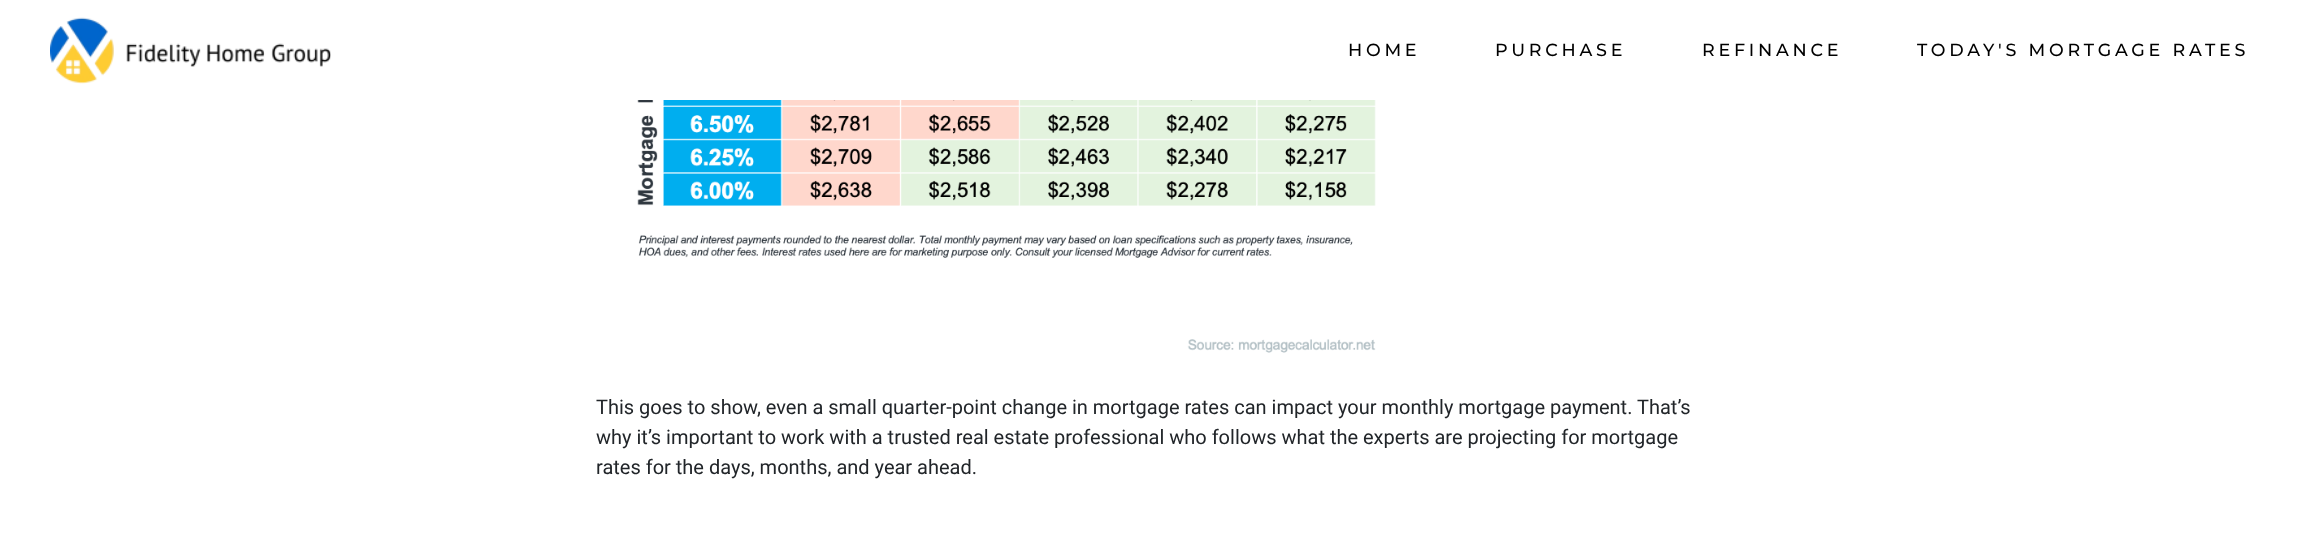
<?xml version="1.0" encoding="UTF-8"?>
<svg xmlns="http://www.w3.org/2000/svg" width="2317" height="546">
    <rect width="100%" height="100%" fill="#FFFFFF"/>
    <image x="50" y="17" width="281" height="67" href="img_01.png"/>
    <text x="1348" y="56" font-family="Montserrat" font-size="17.5" font-weight="100" letter-spacing="3.75" fill="#000000">HOME</text>
    <text x="1495" y="56" font-family="Montserrat" font-size="17.5" font-weight="100" letter-spacing="3.75" fill="#000000">PURCHASE</text>
    <text x="1702" y="56" font-family="Montserrat" font-size="17.5" font-weight="100" letter-spacing="3.75" fill="#000000">REFINANCE</text>
    <text x="1917" y="56" font-family="Montserrat" font-size="17.5" font-weight="100" letter-spacing="3.75" fill="#000000">TODAY'S MORTGAGE RATES</text>
    <image x="637" y="100" width="739" height="253" href="img_02.png"/>
    <text font-family="Roboto" font-size="20" fill="#212529">
        <tspan x="596" y="414">This goes to show, even a small quarter-point change in mortgage rates can impact your monthly mortgage payment. That’s</tspan>
        <tspan x="596" y="444">why it’s important to work with a trusted real estate professional who follows what the experts are projecting for mortgage</tspan>
        <tspan x="596" y="474">rates for the days, months, and year ahead.</tspan>
    </text>
</svg>
